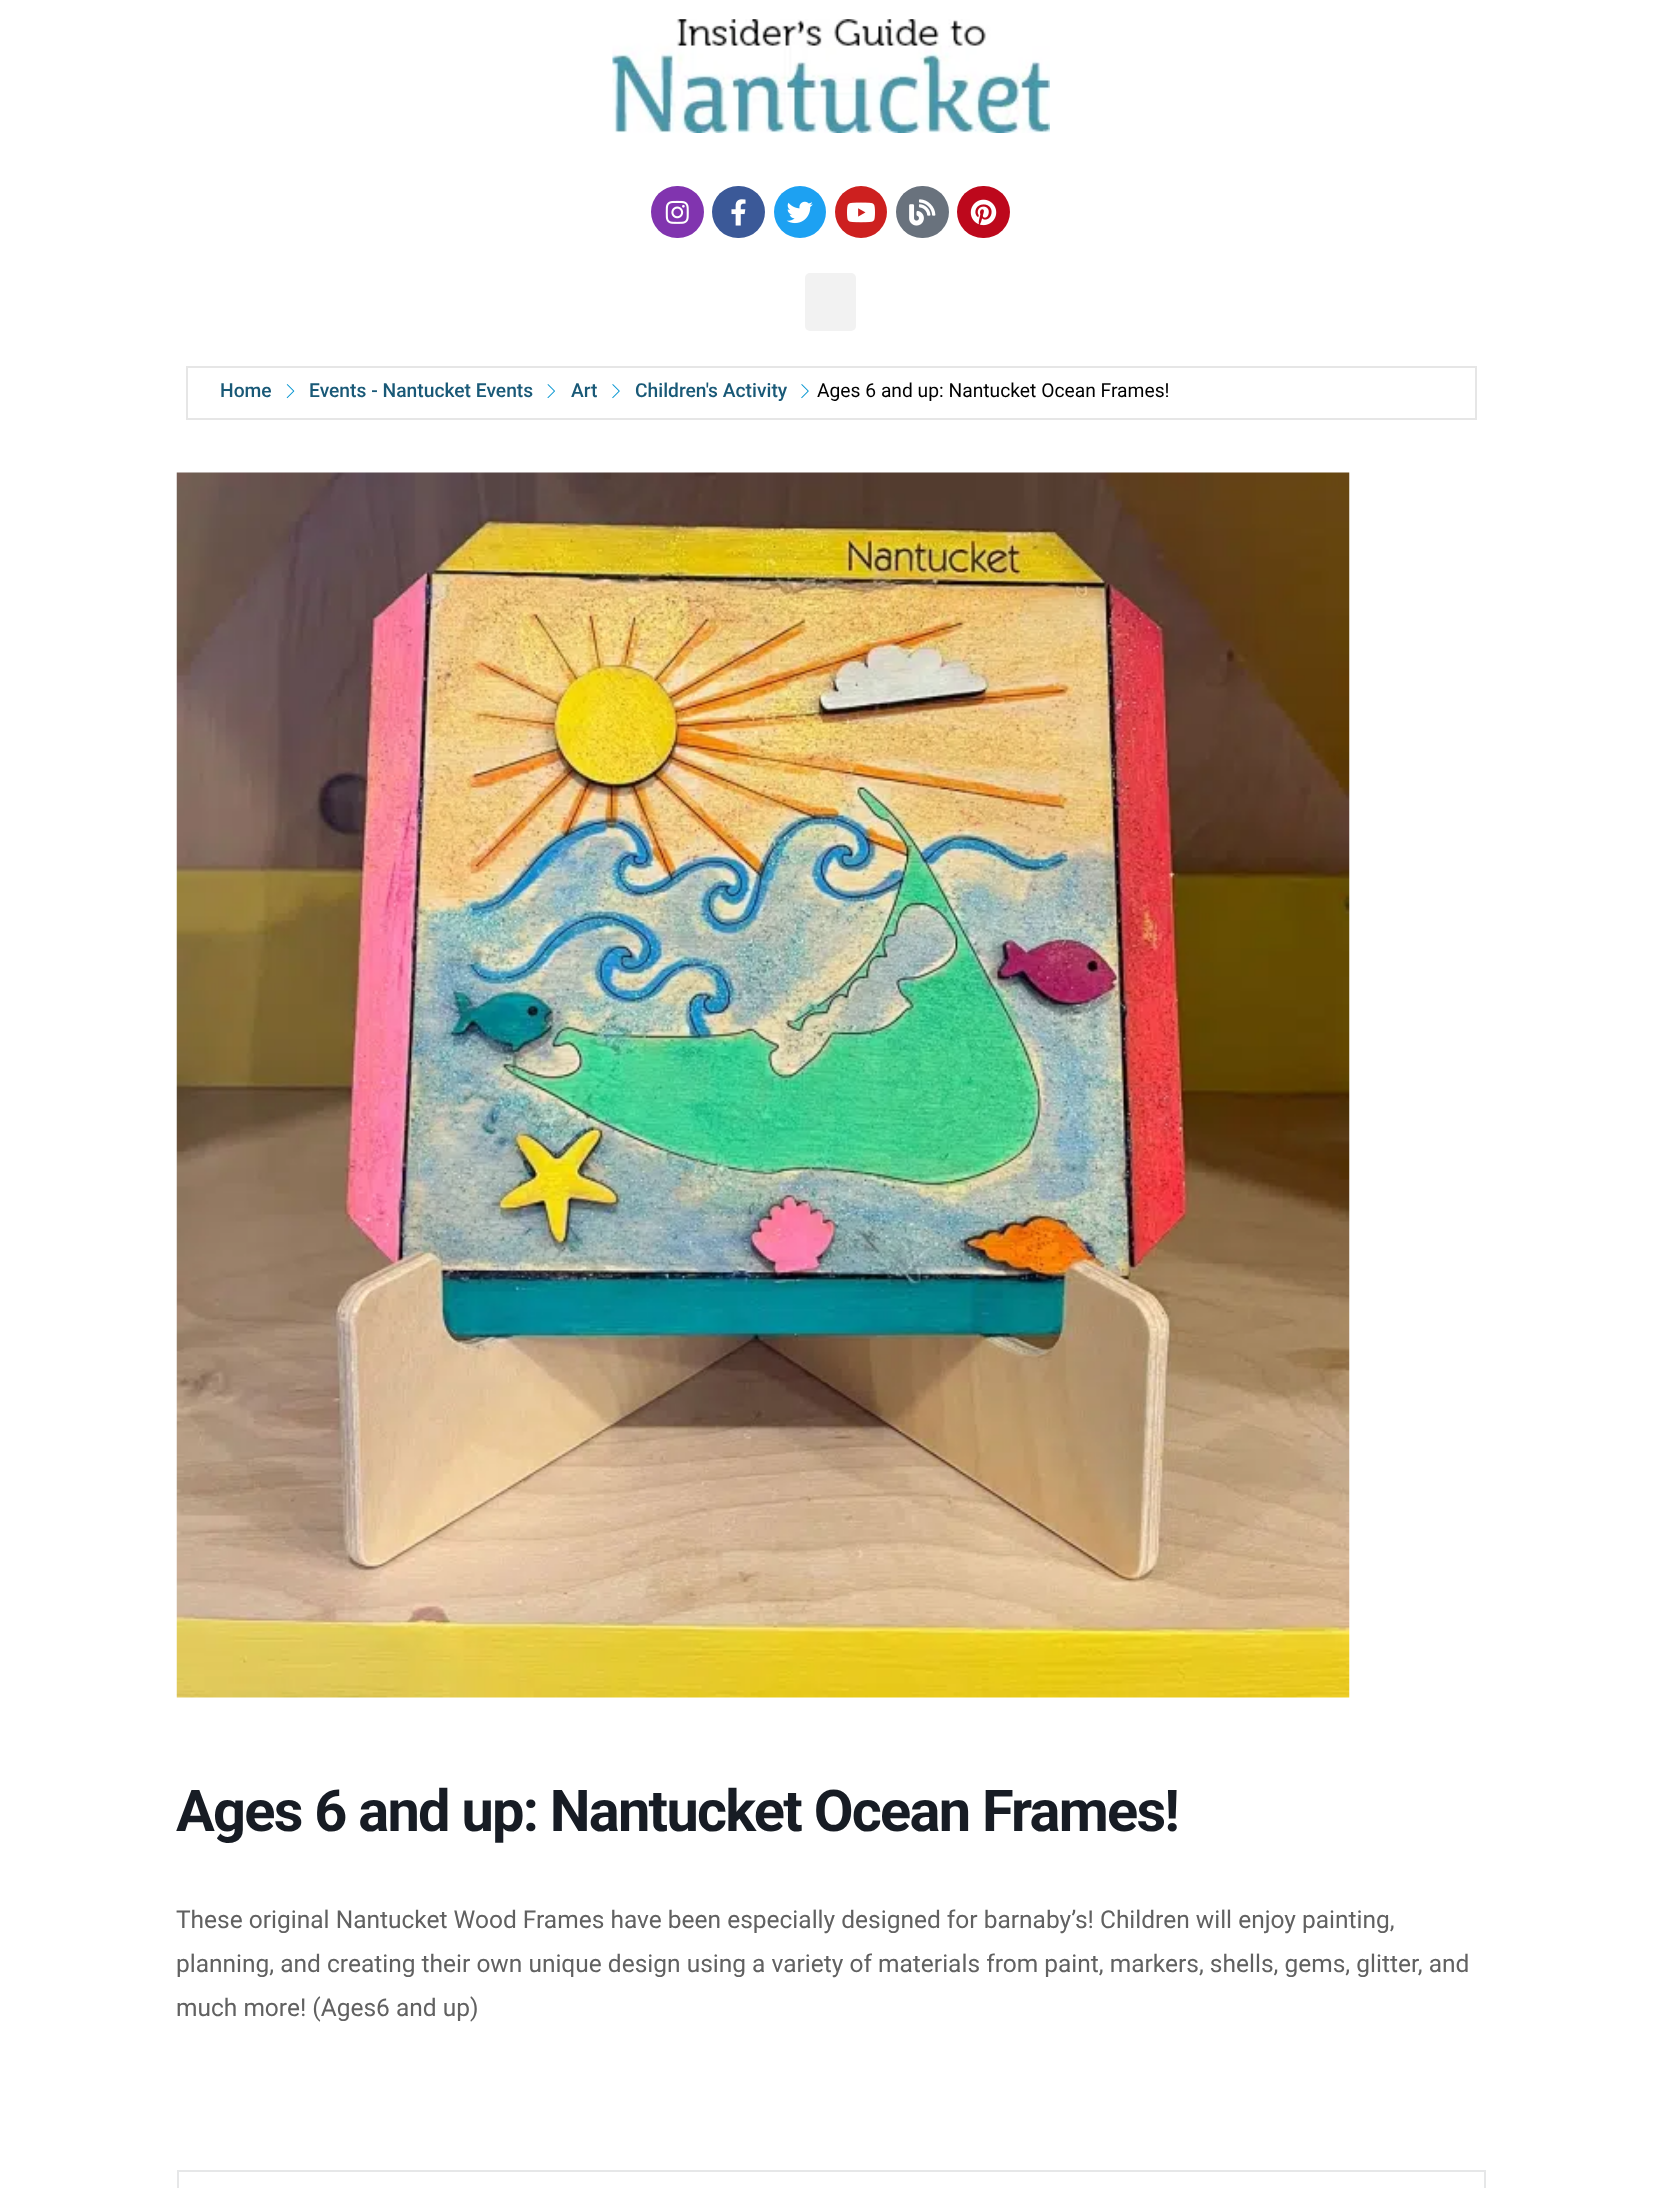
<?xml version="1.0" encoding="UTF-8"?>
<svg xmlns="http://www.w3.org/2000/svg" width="1660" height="2188">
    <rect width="100%" height="100%" fill="#FFFFFF"/>
    <image x="612" y="19" width="438" height="114" href="img_01.png"/>
    <rect x="651" y="186" width="53" height="52" rx="26" fill="#8134AF"/>
    <image x="665" y="200" width="24" height="24" href="img_02.png"/>
    <rect x="712" y="186" width="53" height="52" rx="26" fill="#3B5998"/>
    <image x="731" y="199" width="15" height="27" href="img_03.png"/>
    <circle cx="800" cy="212" r="26" fill="#1DA1F2"/>
    <image x="786" y="201" width="27" height="23" href="img_04.png"/>
    <circle cx="861" cy="212" r="26" fill="#CD201F"/>
    <image x="847" y="202" width="28" height="21" href="img_05.png"/>
    <rect x="896" y="186" width="53" height="52" rx="26" fill="#69727D"/>
    <image x="909" y="199" width="27" height="27" href="img_06.png"/>
    <rect x="957" y="186" width="53" height="52" rx="26" fill="#BD081C"/>
    <image x="970" y="199" width="27" height="27" href="img_07.png"/>
    <rect x="805" y="273" width="51" height="58" rx="5" fill="#F2F2F2"/>
    <rect x="187" y="367" width="1289" height="52" fill="none" stroke="#E6E6E6" stroke-width="2"/>
    <text x="220" y="397" font-family="Roboto" font-size="19.25" font-weight="500" fill="#195977">Home</text>
    <image x="286" y="384" width="9" height="15" href="img_08.png"/>
    <text x="309" y="397" font-family="Roboto" font-size="19.25" font-weight="500" fill="#195977">Events - Nantucket Events</text>
    <image x="547" y="384" width="8" height="14" href="img_09.png"/>
    <text x="571" y="397" font-family="Roboto" font-size="19.25" font-weight="500" fill="#195977">Art</text>
    <image x="612" y="384" width="8" height="15" href="img_10.png"/>
    <text x="635" y="397" font-family="Roboto" font-size="19.25" font-weight="500" fill="#195977">Children's Activity</text>
    <image x="801" y="384" width="8" height="15" href="img_10.png"/>
    <text x="817" y="397" font-family="Roboto" font-size="19.25" fill="#000000">Ages 6 and up: Nantucket Ocean Frames!</text>
    <image x="176" y="472" width="1174" height="1226" href="img_11.png"/>
    <text x="176" y="1831" font-family="Roboto" font-size="57.75" font-weight="700" letter-spacing="-1.75" fill="#171C24">Ages 6 and up: Nantucket Ocean Frames!</text>
    <text font-family="Roboto" font-size="24.5" fill="#616161">
        <tspan x="176" y="1928">These original Nantucket Wood Frames have been especially designed for barnaby’s! Children will enjoy painting,</tspan>
        <tspan x="176" y="1972">planning, and creating their own unique design using a variety of materials from paint, markers, shells, gems, glitter, and</tspan>
        <tspan x="176" y="2016">much more! (Ages6 and up)</tspan>
    </text>
    <rect x="178" y="2171" width="1307" height="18" fill="none" stroke="#E6E7E8" stroke-width="2"/>
</svg>
